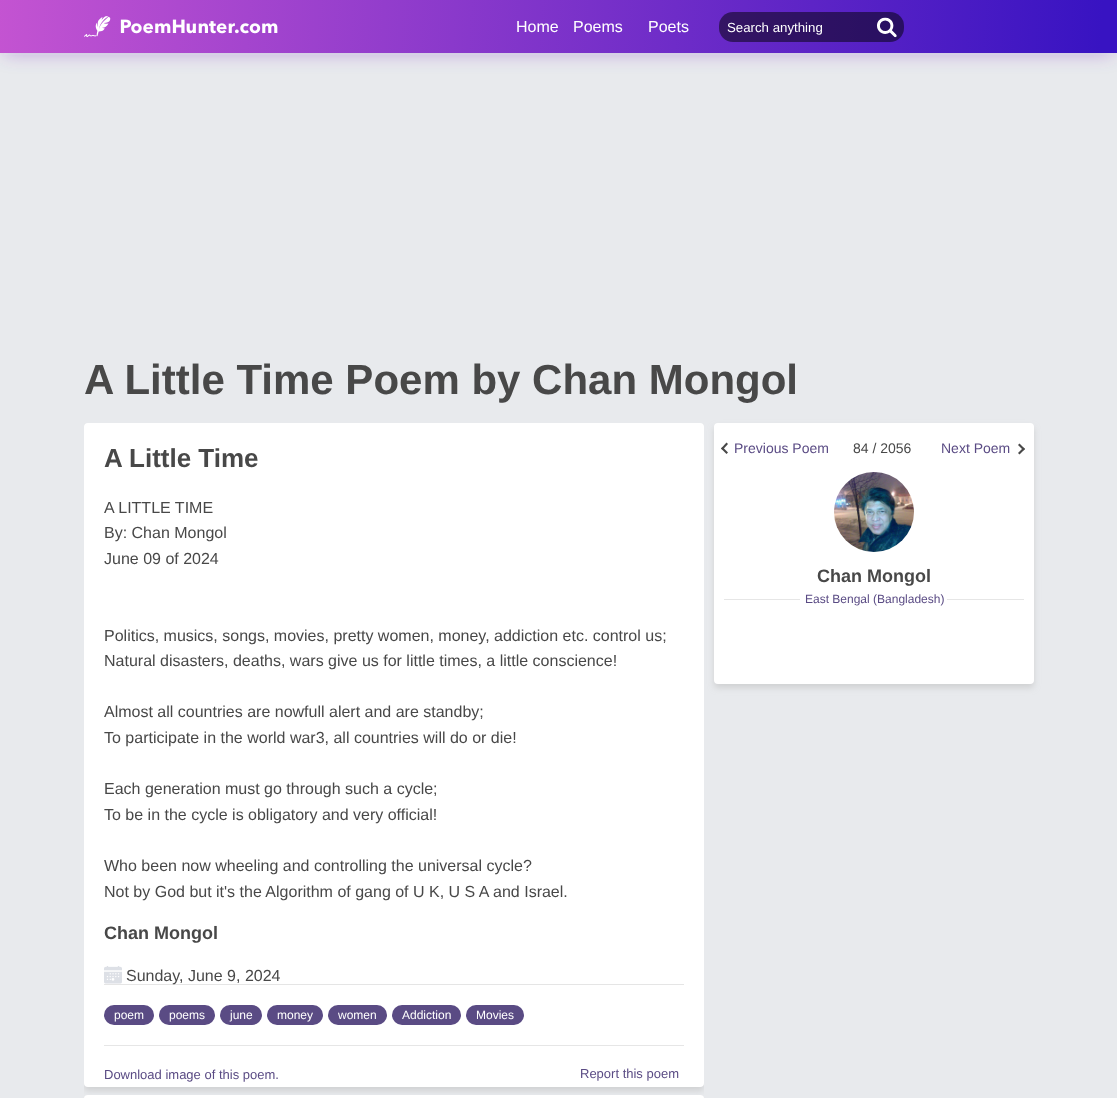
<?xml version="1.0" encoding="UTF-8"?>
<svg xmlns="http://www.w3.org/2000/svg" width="1117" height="1098">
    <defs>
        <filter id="blur1" x="-50%" y="-200%" width="200%" height="500%"><feGaussianBlur stdDeviation="9"/></filter>
        <linearGradient id="g1" gradientUnits="userSpaceOnUse" x1="-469" y1="-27" x2="1117" y2="56"><stop offset="0" stop-color="#FF6FD8"/><stop offset="0.99" stop-color="#3813C2"/></linearGradient>
        <clipPath id="clip1"><rect x="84" y="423" width="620" height="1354"/></clipPath>
        <filter id="blur2" x="-50%" y="-200%" width="200%" height="500%"><feGaussianBlur stdDeviation="3"/></filter>
    </defs>
    <rect width="100%" height="100%" fill="#E8EAED"/>
    <rect x="4" y="10" width="1109" height="45" fill="#631FB6" fill-opacity="0.26" filter="url(#blur1)"/>
    <rect x="0" y="0" width="1117" height="53" fill="url(#g1)"/>
    <image x="84" y="16" width="194" height="22" href="img_01.png"/>
    <text x="516" y="32" font-family="Liberation Sans" font-size="16" fill="#FFFFFF">Home</text>
    <text x="573" y="32" font-family="Liberation Sans" font-size="16" fill="#FFFFFF">Poems</text>
    <text x="648" y="32" font-family="Liberation Sans" font-size="16" fill="#FFFFFF">Poets</text>
    <rect x="719" y="12" width="185" height="30" rx="14" fill="#000000" fill-opacity="0.5"/>
    <text x="727" y="32" font-family="Liberation Sans" font-size="13.25" fill="#FFFFFF">Search anything</text>
    <image x="877" y="17" width="20" height="21" href="img_02.png"/>
    <text x="84" y="394" font-family="Liberation Sans" font-size="42" font-weight="700" fill="#484848">A Little Time Poem by Chan Mongol</text>
    <g clip-path="url(#clip1)">
        <rect x="84" y="427" width="620" height="664" rx="4" fill="#B9B9B9" fill-opacity="0.5" filter="url(#blur2)"/>
    </g>
    <rect x="84" y="423" width="620" height="664" rx="4" fill="#FFFFFF"/>
    <text x="104" y="467" font-family="Liberation Sans" font-size="26" font-weight="700" fill="#484848">A Little Time</text>
    <text font-family="Liberation Sans" font-size="16" fill="#484848">
        <tspan x="104" y="513">A LITTLE TIME</tspan>
        <tspan x="104" y="538">By: Chan Mongol</tspan>
        <tspan x="104" y="564">June 09 of 2024</tspan>
    </text>
    <text font-family="Liberation Sans" font-size="16" fill="#484848">
        <tspan x="104" y="641">Politics, musics, songs, movies, pretty women, money, addiction etc. control us;</tspan>
        <tspan x="104" y="666">Natural disasters, deaths, wars give us for little times, a little conscience!</tspan>
    </text>
    <text font-family="Liberation Sans" font-size="16" fill="#484848">
        <tspan x="104" y="717">Almost all countries are nowfull alert and are standby;</tspan>
        <tspan x="104" y="743">To participate in the world war3, all countries will do or die!</tspan>
    </text>
    <text font-family="Liberation Sans" font-size="16" fill="#484848">
        <tspan x="104" y="794">Each generation must go through such a cycle;</tspan>
        <tspan x="104" y="820">To be in the cycle is obligatory and very official!</tspan>
    </text>
    <text font-family="Liberation Sans" font-size="16" fill="#484848">
        <tspan x="104" y="871">Who been now wheeling and controlling the universal cycle?</tspan>
        <tspan x="104" y="897">Not by God but it's the Algorithm of gang of U K, U S A and Israel.</tspan>
    </text>
    <text x="104" y="939" font-family="Liberation Sans" font-size="18" font-weight="700" fill="#484848">Chan Mongol</text>
    <image x="104" y="966" width="18" height="18" href="img_03.png"/>
    <text x="126" y="981" font-family="Liberation Sans" font-size="16" fill="#484848">Sunday, June 9, 2024</text>
    <rect x="104" y="984" width="580" height="1" fill="#000000" fill-opacity="0.1"/>
    <rect x="104" y="1045" width="580" height="1" fill="#E6E6E6"/>
    <rect x="104" y="1005" width="50" height="20" rx="10" fill="#5A4B84"/>
    <text x="114" y="1019" font-family="Liberation Sans" font-size="12" fill="#FFFFFF">poem</text>
    <rect x="159" y="1005" width="56" height="20" rx="10" fill="#5A4B84"/>
    <text x="169" y="1019" font-family="Liberation Sans" font-size="12" fill="#FFFFFF">poems</text>
    <rect x="220" y="1005" width="42" height="20" rx="10" fill="#5A4B84"/>
    <text x="230" y="1019" font-family="Liberation Sans" font-size="12" fill="#FFFFFF">june</text>
    <rect x="267" y="1005" width="56" height="20" rx="10" fill="#5A4B84"/>
    <text x="277" y="1019" font-family="Liberation Sans" font-size="12" fill="#FFFFFF">money</text>
    <rect x="328" y="1005" width="59" height="20" rx="10" fill="#5A4B84"/>
    <text x="338" y="1019" font-family="Liberation Sans" font-size="12" fill="#FFFFFF">women</text>
    <rect x="392" y="1005" width="69" height="20" rx="10" fill="#5A4B84"/>
    <text x="402" y="1019" font-family="Liberation Sans" font-size="12" fill="#FFFFFF">Addiction</text>
    <rect x="466" y="1005" width="58" height="20" rx="10" fill="#5A4B84"/>
    <text x="476" y="1019" font-family="Liberation Sans" font-size="12" fill="#FFFFFF">Movies</text>
    <text x="104" y="1079" font-family="Liberation Sans" font-size="13" fill="#5A4B84">Download image of this poem.</text>
    <text x="580" y="1078" font-family="Liberation Sans" font-size="13" fill="#5A4B84">Report this poem</text>
    <rect x="84" y="1095" width="620" height="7" rx="4" fill="#FFFFFF"/>
    <rect x="714" y="427" width="320" height="261" rx="4" fill="#B9B9B9" fill-opacity="0.5" filter="url(#blur2)"/>
    <rect x="714" y="423" width="320" height="261" rx="4" fill="#FFFFFF"/>
    <path d="M 728 452.5 L 726.5 454 L 721 448.5 L 722.5 447 Z" fill="#484848"/>
    <path d="M 728 444 L 722.5 450 L 721 448.5 L 726.5 442.5 Z" fill="#484848"/>
    <text x="734" y="453" font-family="Liberation Sans" font-size="14" fill="#5A4B84">Previous Poem</text>
    <text x="853" y="453" font-family="Liberation Sans" font-size="14" fill="#484848">84 / 2056</text>
    <text x="941" y="453" font-family="Liberation Sans" font-size="14" fill="#5A4B84">Next Poem</text>
    <path d="M 1018 445 L 1019.5 443.5 L 1025 449 L 1023.5 450.5 Z" fill="#484848"/>
    <path d="M 1018 453 L 1023.5 447.5 L 1025 449 L 1019.5 454.5 Z" fill="#484848"/>
    <image x="834" y="472" width="80" height="80" href="img_04.png"/>
    <text x="817" y="582" font-family="Liberation Sans" font-size="18" font-weight="700" fill="#484848">Chan Mongol</text>
    <rect x="724" y="599" width="300" height="1" fill="#E6E6E6"/>
    <rect x="800" y="599" width="147" height="1" fill="#FFFFFF"/>
    <text x="805" y="603" font-family="Liberation Sans" font-size="12" fill="#5A4B84">East Bengal (Bangladesh)</text>
</svg>
